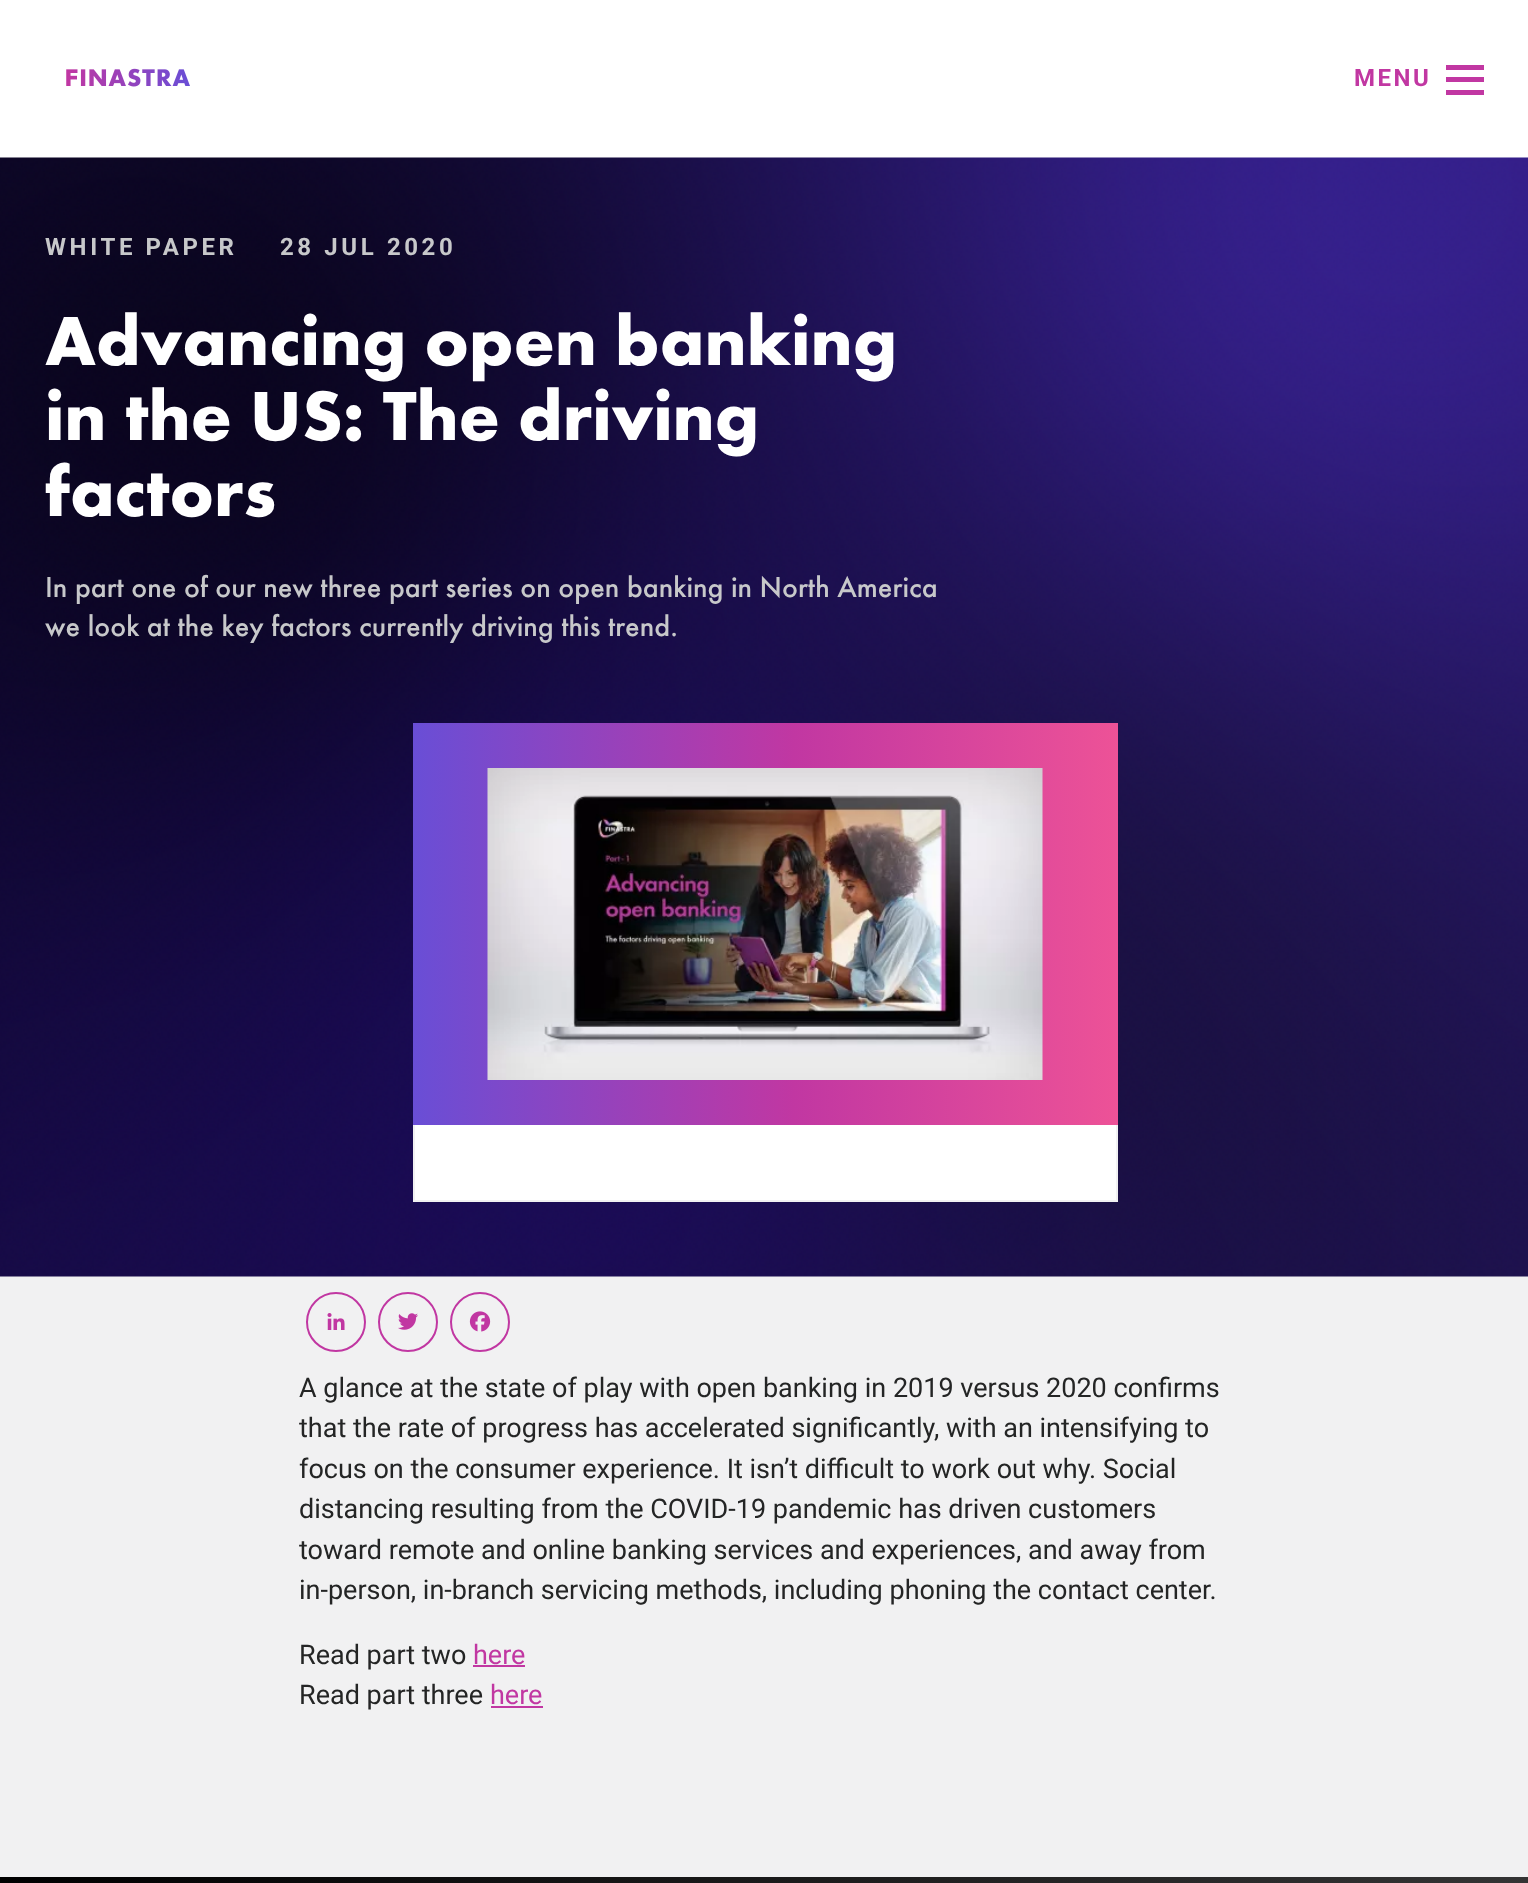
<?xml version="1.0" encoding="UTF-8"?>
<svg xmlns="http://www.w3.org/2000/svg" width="1528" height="1883">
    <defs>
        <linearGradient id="g1" gradientUnits="userSpaceOnUse" x1="413" y1="924" x2="1118" y2="924"><stop offset="0" stop-color="#694ED6"/><stop offset="0.54" stop-color="#C137A2"/><stop offset="1" stop-color="#ED5297"/></linearGradient>
        <linearGradient id="g2" gradientUnits="userSpaceOnUse" x1="0" y1="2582" x2="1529" y2="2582"><stop offset="0" stop-color="#000000"/><stop offset="1" stop-color="#343434"/></linearGradient>
    </defs>
    <rect width="100%" height="100%" fill="#FFFFFF"/>
    <image x="66" y="68" width="124" height="19" href="img_01.png"/>
    <rect x="1446" y="65" width="38" height="5" fill="#C137A2"/>
    <text x="1354" y="86" font-family="Roboto" font-size="24" font-weight="700" letter-spacing="2.5" fill="#C137A2">MENU</text>
    <rect x="1446" y="77" width="38" height="5" fill="#C137A2"/>
    <rect x="1446" y="90" width="38" height="5" fill="#C137A2"/>
    <rect x="0" y="1276" width="1528" height="601" fill="#F1F1F2"/>
    <image x="0" y="157" width="1528" height="1120" href="img_02.png"/>
    <text x="45" y="255" font-family="Roboto" font-size="24" font-weight="700" letter-spacing="3.6" fill="#C7C8CA">WHITE PAPER</text>
    <text x="280" y="255" font-family="Roboto" font-size="24" font-weight="700" letter-spacing="3.6" fill="#C7C8CA">28 JUL 2020</text>
    <text font-family="Futura" font-size="72" fill="#FFFFFF">
        <tspan x="45" y="365">Advancing open banking</tspan>
        <tspan x="45" y="440">in the US: The driving</tspan>
        <tspan x="45" y="516">factors</tspan>
    </text>
    <text font-family="'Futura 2'" font-size="30" fill="#C7C8CA">
        <tspan x="45" y="597">In part one of our new three part series on open banking in North America</tspan>
        <tspan x="45" y="636">we look at the key factors currently driving this trend.</tspan>
    </text>
    <rect x="415" y="1125" width="701" height="75" fill="#FFFFFF"/>
    <rect x="413" y="723" width="705" height="402" fill="url(#g1)"/>
    <image x="487" y="768" width="556" height="312" href="img_03.png"/>
    <rect x="1116" y="1125" width="2" height="77" fill="#F1F1F2"/>
    <rect x="413" y="1200" width="705" height="2" fill="#F1F1F2"/>
    <rect x="413" y="1125" width="2" height="77" fill="#F1F1F2"/>
    <circle cx="336" cy="1322" r="29" fill="none" stroke="#C137A2" stroke-width="2"/>
    <image x="327" y="1313" width="18" height="17" href="img_04.png"/>
    <circle cx="408" cy="1322" r="29" fill="none" stroke="#C137A2" stroke-width="2"/>
    <image x="398" y="1313" width="20" height="17" href="img_05.png"/>
    <circle cx="480" cy="1322" r="29" fill="none" stroke="#C137A2" stroke-width="2"/>
    <image x="469" y="1311" width="22" height="21" href="img_06.png"/>
    <text font-family="Roboto" font-size="27" fill="#242525">
        <tspan x="299" y="1397">A glance at the state of play with open banking in 2019 versus 2020 confirms</tspan>
        <tspan x="299" y="1437">that the rate of progress has accelerated significantly, with an intensifying to</tspan>
        <tspan x="299" y="1478">focus on the consumer experience. It isn’t difficult to work out why. Social</tspan>
        <tspan x="299" y="1518">distancing resulting from the COVID-19 pandemic has driven customers</tspan>
        <tspan x="299" y="1559">toward remote and online banking services and experiences, and away from</tspan>
        <tspan x="299" y="1599">in-person, in-branch servicing methods, including phoning the contact center.</tspan>
    </text>
    <text x="299" y="1664" font-family="Roboto" font-size="27" fill="#242525">Read part two</text>
    <text x="473" y="1664" font-family="Roboto" font-size="27" fill="#C137A2">here</text>
    <rect x="473" y="1665" width="52" height="2" fill="#C137A2"/>
    <text x="299" y="1704" font-family="Roboto" font-size="27" fill="#242525">Read part three</text>
    <text x="490" y="1704" font-family="Roboto" font-size="27" fill="#C137A2">here</text>
    <rect x="491" y="1706" width="52" height="2" fill="#C137A2"/>
    <rect x="0" y="1877" width="1528" height="6" fill="url(#g2)"/>
</svg>
